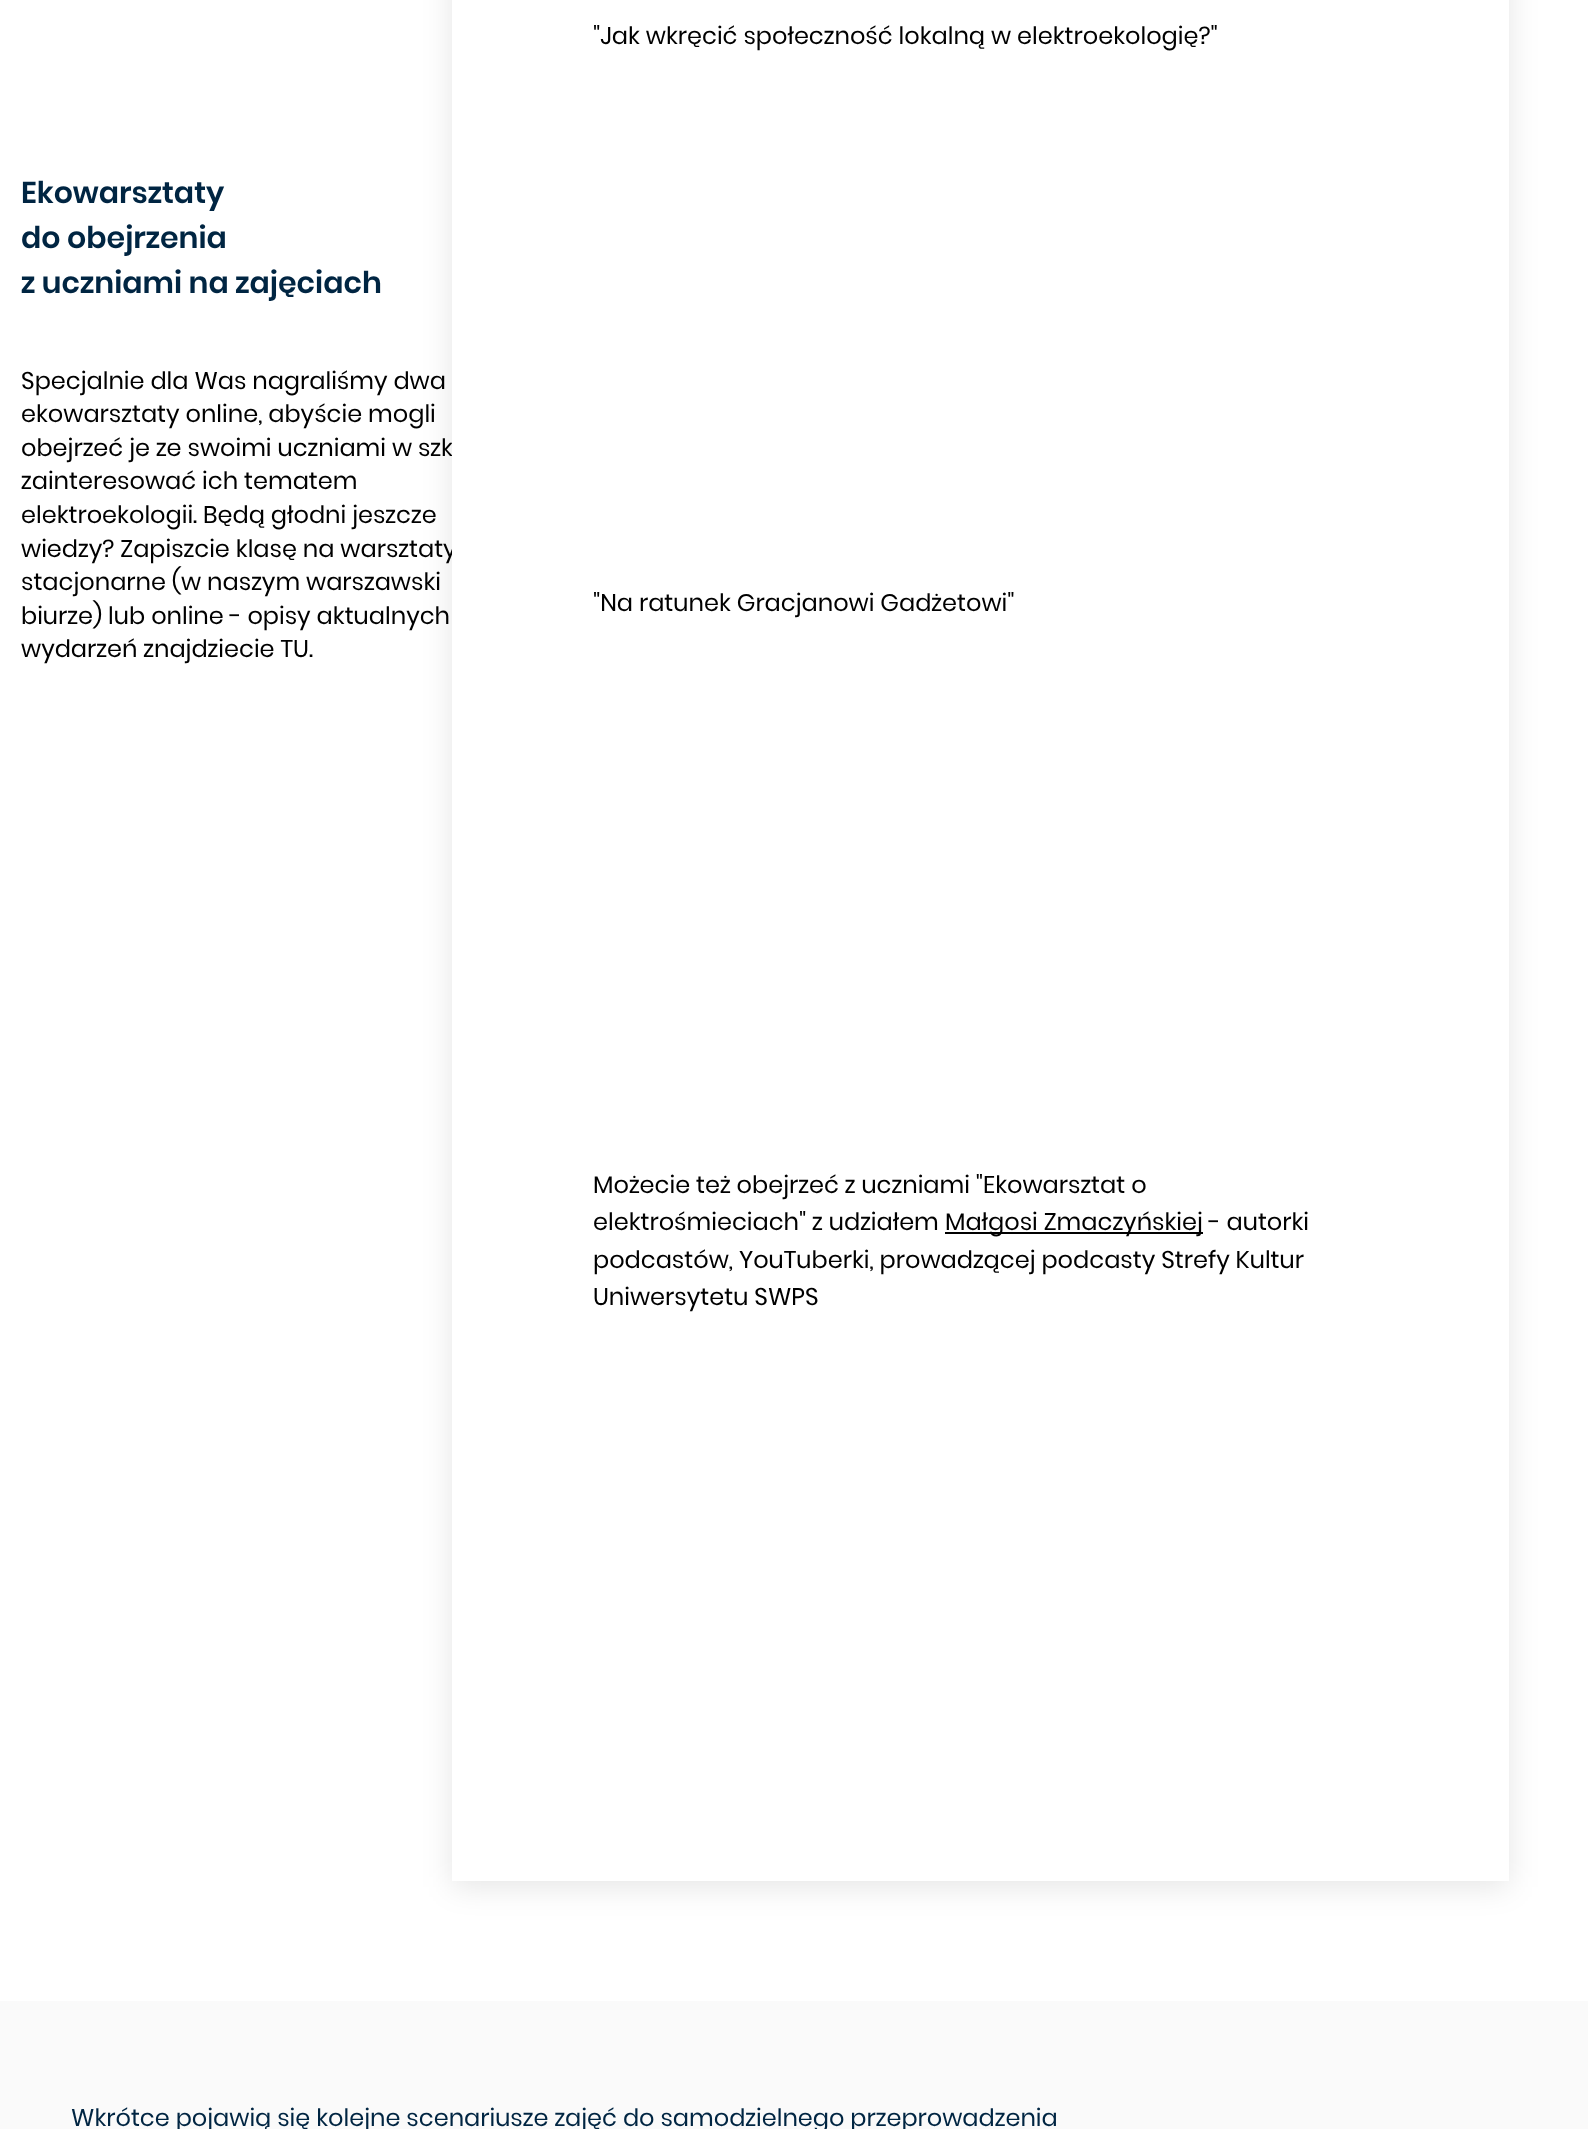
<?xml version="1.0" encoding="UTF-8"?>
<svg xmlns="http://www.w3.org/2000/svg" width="1588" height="2129">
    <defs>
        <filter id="blur1" x="-50%" y="-200%" width="200%" height="500%"><feGaussianBlur stdDeviation="15"/></filter>
    </defs>
    <rect width="100%" height="100%" fill="#FFFFFF"/>
    <text font-family="Poppins" font-size="30" font-weight="600" fill="#002542">
        <tspan x="21" y="203">Ekowarsztaty</tspan>
        <tspan x="21" y="248">do obejrzenia</tspan>
        <tspan x="21" y="293">z uczniami na zajęciach</tspan>
    </text>
    <text font-family="Poppins" font-size="24" fill="#000000">
        <tspan x="21" y="389">Specjalnie dla Was nagraliśmy dwa</tspan>
        <tspan x="21" y="422">ekowarsztaty online, abyście mogli</tspan>
        <tspan x="21" y="456">obejrzeć je ze swoimi uczniami w szk</tspan>
        <tspan x="21" y="489">zainteresować ich tematem</tspan>
        <tspan x="21" y="523">elektroekologii. Będą głodni jeszcze</tspan>
        <tspan x="21" y="557">wiedzy? Zapiszcie klasę na warsztaty</tspan>
        <tspan x="21" y="590">stacjonarne (w naszym warszawski</tspan>
        <tspan x="21" y="624">biurze) lub online - opisy aktualnych</tspan>
        <tspan x="21" y="657">wydarzeń znajdziecie TU.</tspan>
    </text>
    <rect x="452" y="-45" width="1057" height="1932" fill="#000000" fill-opacity="0.1" filter="url(#blur1)"/>
    <rect x="452" y="0" width="1057" height="1881" fill="#FFFFFF"/>
    <text x="593" y="44" font-family="Poppins" font-size="24" fill="#000000">"Jak wkręcić społeczność lokalną w elektroekologię?"</text>
    <text x="593" y="611" font-family="Poppins" font-size="24" fill="#000000">"Na ratunek Gracjanowi Gadżetowi"</text>
    <text font-family="Poppins" font-size="24" fill="#000000">
        <tspan x="593" y="1193">Możecie też obejrzeć z uczniami "Ekowarsztat o</tspan>
        <tspan x="593" y="1230">elektrośmieciach" z udziałem</tspan>
    </text>
    <rect x="945" y="1232" width="258" height="2" fill="#000000"/>
    <text x="945" y="1230" font-family="Poppins" font-size="24" fill="#000000">Małgosi Zmaczyńskiej - autorki</text>
    <text font-family="Poppins" font-size="24" fill="#000000">
        <tspan x="593" y="1268">podcastów, YouTuberki, prowadzącej podcasty Strefy Kultur</tspan>
        <tspan x="593" y="1305">Uniwersytetu SWPS</tspan>
    </text>
    <rect x="0" y="2001" width="1588" height="128" fill="#FAFAFA"/>
    <text x="71" y="2126" font-family="Poppins" font-size="24" fill="#002542">Wkrótce pojawią się kolejne scenariusze zajęć do samodzielnego przeprowadzenia</text>
</svg>
